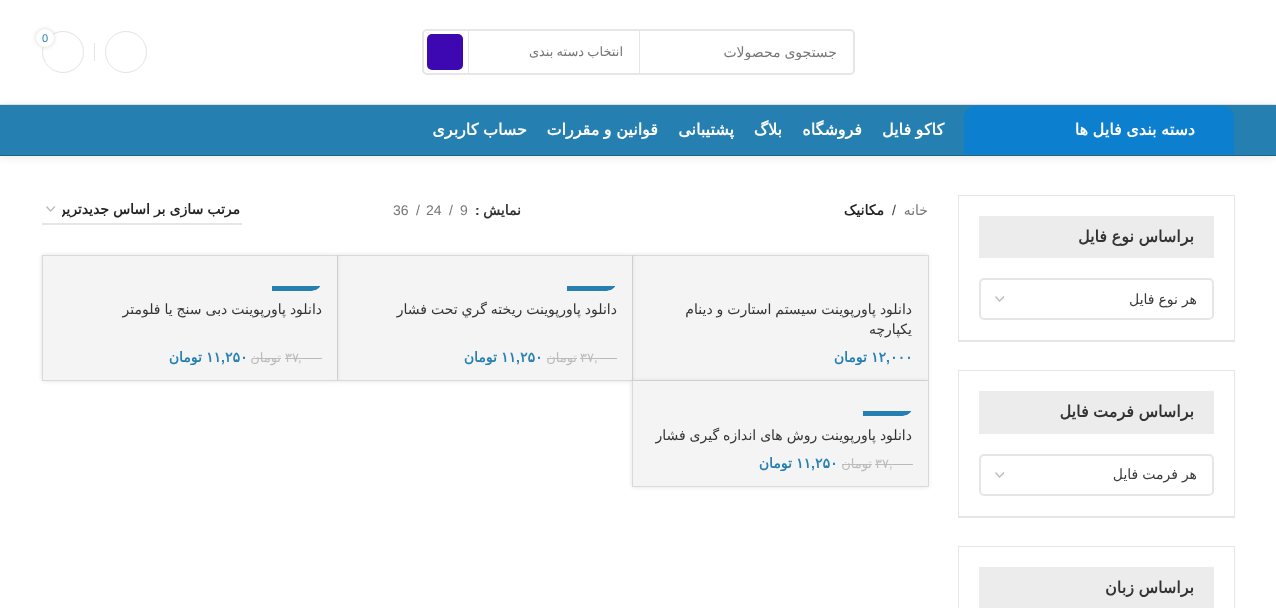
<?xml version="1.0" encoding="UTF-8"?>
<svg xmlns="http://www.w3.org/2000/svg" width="1276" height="608">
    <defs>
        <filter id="blur1" x="-50%" y="-200%" width="200%" height="500%"><feGaussianBlur stdDeviation="2"/></filter>
        <clipPath id="clip1"><rect x="657" y="44" width="181" height="16"/></clipPath>
        <filter id="blur2" x="-50%" y="-200%" width="200%" height="500%"><feGaussianBlur stdDeviation="4"/></filter>
        <clipPath id="clip2"><path d="M 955 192 H 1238 V 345 H 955 Z M 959 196 H 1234 V 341 H 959 Z" clip-rule="evenodd"/></clipPath>
        <filter id="blur3" x="-50%" y="-200%" width="200%" height="500%"><feGaussianBlur stdDeviation="0.5"/></filter>
        <clipPath id="clip3"><rect x="1011" y="290" width="186" height="19"/></clipPath>
        <clipPath id="clip4"><path d="M 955 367 H 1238 V 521 H 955 Z M 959 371 H 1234 V 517 H 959 Z" clip-rule="evenodd"/></clipPath>
        <clipPath id="clip5"><rect x="1011" y="465" width="186" height="20"/></clipPath>
        <clipPath id="clip6"><path d="M 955 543 H 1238 V 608 H 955 Z M 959 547 H 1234 V 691 H 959 Z" clip-rule="evenodd"/></clipPath>
        <clipPath id="clip7"><rect x="62" y="201" width="178" height="17"/></clipPath>
        <clipPath id="clip8"><rect x="648" y="271" width="265" height="94"/></clipPath>
        <clipPath id="clip9"><rect x="353" y="271" width="264" height="20" rx="10"/></clipPath>
        <clipPath id="clip10"><rect x="353" y="271" width="264" height="94"/></clipPath>
        <clipPath id="clip11"><rect x="58" y="271" width="264" height="20" rx="10"/></clipPath>
        <clipPath id="clip12"><rect x="58" y="271" width="264" height="94"/></clipPath>
        <clipPath id="clip13"><rect x="648" y="396" width="265" height="20" rx="10"/></clipPath>
        <clipPath id="clip14"><rect x="648" y="396" width="265" height="75"/></clipPath>
    </defs>
    <rect width="100%" height="100%" fill="#FFFFFF"/>
    <rect x="0" y="104" width="1276" height="1" fill="#E6E6E6"/>
    <circle cx="126" cy="52" r="20.5" fill="none" stroke="#E4E4E4"/>
    <circle cx="63" cy="52" r="20.5" fill="none" stroke="#E4E4E4"/>
    <rect x="36" y="29" width="18" height="18" rx="9" fill="#000000" fill-opacity="0.17" filter="url(#blur1)"/>
    <circle cx="45" cy="38" r="9" fill="#FFFFFF"/>
    <text x="42" y="42" font-family="Liberation Sans" font-size="11" fill="#257FB1">0</text>
    <rect x="94" y="43" width="1" height="18" fill="#E4E4E4"/>
    <rect x="423" y="30" width="431" height="44" rx="4" fill="none" stroke="#E6E6E6" stroke-width="2"/>
    <g clip-path="url(#clip1)">
        <text x="837" y="57" word-spacing="-0.5" font-family="DejaVu Sans" font-size="14" direction="rtl" fill="#767676">جستجوی محصولات</text>
    </g>
    <rect x="639" y="31" width="1" height="42" fill="#E6E6E6"/>
    <rect x="468" y="31" width="1" height="42" fill="#E6E6E6"/>
    <text x="623" y="56" word-spacing="-1" font-family="DejaVu Sans" font-size="13" direction="rtl" fill="#767676">انتخاب دسته بندی</text>
    <rect x="427" y="34" width="36" height="36" rx="5" fill="#3D07B2"/>
    <rect x="0" y="106" width="1276" height="51" fill="#000000" fill-opacity="0.1" filter="url(#blur2)"/>
    <rect x="0" y="105" width="1276" height="50" fill="#257FB1"/>
    <rect x="0" y="155" width="1276" height="1" fill="#1A638B"/>
    <path d="M 976 106 H 1222 C 1228.5 106 1234 111.5 1234 118 V 154 H 964 V 118 C 964 111.5 969.5 106 976 106 Z" fill="#0C7FCE"/>
    <text x="1195" y="135" word-spacing="-0.5" font-family="DejaVu Sans" font-size="16" font-weight="700" direction="rtl" fill="#FFFFFF">دسته بندی فایل ها</text>
    <text x="944" y="135" word-spacing="-0.5" font-family="DejaVu Sans" font-size="16" font-weight="700" direction="rtl" fill="#FFFFFF">کاکو فایل</text>
    <text x="862" y="135" font-family="DejaVu Sans" font-size="16" font-weight="700" direction="rtl" fill="#FFFFFF">فروشگاه</text>
    <text x="782" y="135" font-family="DejaVu Sans" font-size="16" font-weight="700" direction="rtl" fill="#FFFFFF">بلاگ</text>
    <text x="734" y="135" font-family="DejaVu Sans" font-size="16" font-weight="700" direction="rtl" fill="#FFFFFF">پشتیبانی</text>
    <text x="658" y="135" word-spacing="-0.5" font-family="DejaVu Sans" font-size="16" font-weight="700" direction="rtl" fill="#FFFFFF">قوانین و مقررات</text>
    <text x="527" y="135" word-spacing="-0.5" font-family="DejaVu Sans" font-size="16" font-weight="700" direction="rtl" fill="#FFFFFF">حساب کاربری</text>
    <g clip-path="url(#clip2)">
        <rect x="958" y="195" width="277" height="147" fill="#E6E6E6" filter="url(#blur3)"/>
    </g>
    <rect x="959" y="340" width="275" height="1" fill="#E4E4E4"/>
    <rect x="979" y="216" width="235" height="42" fill="#ECECEC"/>
    <text x="1194" y="242" word-spacing="-0.5" font-family="DejaVu Sans" font-size="16" font-weight="700" direction="rtl" fill="#333333">براساس نوع فایل</text>
    <path d="M 995.5 296.5 L 999.5 301 L 1004 296.5" fill="none" stroke="#BBBBBB" stroke-width="1.4"/>
    <rect x="980" y="279" width="233" height="40" rx="4" fill="none" stroke="#E6E6E6" stroke-width="2"/>
    <g clip-path="url(#clip3)">
        <text x="1197" y="304" word-spacing="-0.5" font-family="DejaVu Sans" font-size="14" direction="rtl" fill="#3A3A3A">هر نوع فایل</text>
    </g>
    <g clip-path="url(#clip4)">
        <rect x="958" y="370" width="277" height="148" fill="#E6E6E6" filter="url(#blur3)"/>
    </g>
    <rect x="959" y="516" width="275" height="1" fill="#E4E4E4"/>
    <rect x="979" y="391" width="235" height="43" fill="#ECECEC"/>
    <text x="1194" y="417" word-spacing="-0.5" font-family="DejaVu Sans" font-size="16" font-weight="700" direction="rtl" fill="#333333">براساس فرمت فایل</text>
    <path d="M 995.5 472.5 L 999.5 477 L 1004 472.5" fill="none" stroke="#BBBBBB" stroke-width="1.4"/>
    <rect x="980" y="455" width="233" height="40" rx="4" fill="none" stroke="#E6E6E6" stroke-width="2"/>
    <g clip-path="url(#clip5)">
        <text x="1197" y="479" word-spacing="-0.5" font-family="DejaVu Sans" font-size="14" direction="rtl" fill="#3A3A3A">هر فرمت فایل</text>
    </g>
    <g clip-path="url(#clip6)">
        <rect x="958" y="546" width="277" height="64" fill="#E6E6E6" filter="url(#blur3)"/>
    </g>
    <rect x="979" y="567" width="235" height="41" fill="#ECECEC"/>
    <text x="1194" y="593" word-spacing="-0.5" font-family="DejaVu Sans" font-size="16" font-weight="700" direction="rtl" fill="#333333">براساس زبان</text>
    <text x="928" y="215" font-family="DejaVu Sans" font-size="14" direction="rtl" fill="#767676">خانه</text>
    <text x="892" y="215" font-family="Liberation Sans" font-size="14" fill="#3A3A3A">/</text>
    <text x="884" y="215" font-family="DejaVu Sans" font-size="14" font-weight="700" direction="rtl" fill="#242424">مکانیک</text>
    <text x="521" y="215" font-family="DejaVu Sans" font-size="14" font-weight="700" direction="rtl" fill="#333333">نمایش</text>
    <text x="475" y="215" font-family="Liberation Sans" font-size="14" font-weight="700" fill="#333333">:</text>
    <text x="460" y="215" font-family="Liberation Sans" font-size="14" fill="#767676">9</text>
    <text x="449" y="215" font-family="Liberation Sans" font-size="14" fill="#767676">/</text>
    <text x="426" y="215" font-family="Liberation Sans" font-size="14" fill="#767676">24</text>
    <text x="416" y="215" font-family="Liberation Sans" font-size="14" fill="#767676">/</text>
    <text x="393" y="215" font-family="Liberation Sans" font-size="14" fill="#767676">36</text>
    <path d="M 46.5 206.5 L 50.5 211 L 55 206.5" fill="none" stroke="#BBBBBB" stroke-width="1.4"/>
    <rect x="42" y="223" width="200" height="2" fill="#E6E6E6"/>
    <g clip-path="url(#clip7)">
        <text x="240" y="214" word-spacing="-0.5" font-family="DejaVu Sans" font-size="14" font-weight="700" direction="rtl" fill="#242424">مرتب سازی بر اساس جدیدترین</text>
    </g>
    <rect x="928" y="255" width="1" height="232" fill="#E4E4E4"/>
    <rect x="632" y="255" width="296" height="126" fill="#000000" fill-opacity="0.12" filter="url(#blur1)"/>
    <rect x="632" y="255" width="296" height="126" fill="#F4F4F4"/>
    <path d="M 632 255 H 928 V 256 H 633 Z" fill="#DADADA"/>
    <path d="M 928 381 H 632 L 633 380 H 928 Z" fill="#DADADA"/>
    <path d="M 632 381 V 255 L 633 256 V 380 Z" fill="#000000" fill-opacity="0.11"/>
    <g clip-path="url(#clip8)">
        <text x="912" y="314" word-spacing="-0.5" font-family="DejaVu Sans" font-size="14" direction="rtl" fill="#333333">دانلود پاورپوینت سیستم استارت و دينام</text>
    </g>
    <text x="912" y="334" font-family="DejaVu Sans" font-size="14" direction="rtl" fill="#333333">يکپارچه</text>
    <text x="890" y="362" font-family="DejaVu Sans" font-size="14" font-weight="700" fill="#257FB1">۰۰۰</text>
    <text x="871" y="362" font-family="DejaVu Sans" font-size="14" font-weight="700" fill="#257FB1">۱۲</text>
    <g clip-path="url(#clip8)">
        <text x="867" y="362" font-family="DejaVu Sans" font-size="14" font-weight="700" direction="rtl" fill="#257FB1">تومان</text>
    </g>
    <text x="886" y="362" font-family="Liberation Sans" font-size="14" font-weight="700" fill="#257FB1">,</text>
    <rect x="337" y="255" width="295" height="126" fill="#000000" fill-opacity="0.12" filter="url(#blur1)"/>
    <rect x="337" y="255" width="295" height="126" fill="#F4F4F4"/>
    <path d="M 337 255 H 632 V 256 H 338 Z" fill="#DADADA"/>
    <path d="M 632 381 H 337 L 338 380 H 632 Z" fill="#DADADA"/>
    <path d="M 337 381 V 255 L 338 256 V 380 Z" fill="#000000" fill-opacity="0.11"/>
    <g clip-path="url(#clip9)">
        <g clip-path="url(#clip9)">
            <rect x="567" y="286" width="50" height="5" fill="#257FB1"/>
        </g>
    </g>
    <g clip-path="url(#clip10)">
        <text x="617" y="314" word-spacing="-0.5" font-family="DejaVu Sans" font-size="14" direction="rtl" fill="#333333">دانلود پاورپوینت ريخته گري تحت فشار</text>
    </g>
    <text x="594" y="362" font-family="Liberation Sans" font-size="13" fill="#BBBBBB">,</text>
    <text x="580" y="362" font-family="DejaVu Sans" font-size="13" fill="#BBBBBB">۳۷</text>
    <rect x="580" y="358" width="37" height="1" fill="#BBBBBB"/>
    <text x="577" y="362" font-family="DejaVu Sans" font-size="13" direction="rtl" fill="#BBBBBB">تومان</text>
    <rect x="547" y="358" width="30" height="1" fill="#BBBBBB"/>
    <text x="520" y="362" font-family="DejaVu Sans" font-size="14" font-weight="700" fill="#257FB1">۲۵۰</text>
    <text x="516" y="362" font-family="Liberation Sans" font-size="14" font-weight="700" fill="#257FB1">,</text>
    <text x="501" y="362" font-family="DejaVu Sans" font-size="14" font-weight="700" fill="#257FB1">۱۱</text>
    <g clip-path="url(#clip10)">
        <text x="497" y="362" font-family="DejaVu Sans" font-size="14" font-weight="700" direction="rtl" fill="#257FB1">تومان</text>
    </g>
    <rect x="42" y="255" width="295" height="126" fill="#000000" fill-opacity="0.12" filter="url(#blur1)"/>
    <rect x="42" y="255" width="295" height="126" fill="#F4F4F4"/>
    <path d="M 42 255 H 337 V 256 H 43 Z" fill="#DADADA"/>
    <path d="M 337 381 H 42 L 43 380 H 337 Z" fill="#DADADA"/>
    <path d="M 42 381 V 255 L 43 256 V 380 Z" fill="#000000" fill-opacity="0.11"/>
    <g clip-path="url(#clip11)">
        <g clip-path="url(#clip11)">
            <rect x="272" y="286" width="50" height="5" fill="#257FB1"/>
        </g>
    </g>
    <g clip-path="url(#clip12)">
        <text x="322" y="314" word-spacing="-0.5" font-family="DejaVu Sans" font-size="14" direction="rtl" fill="#333333">دانلود پاورپوینت دبی سنج یا فلومتر</text>
    </g>
    <text x="298" y="362" font-family="Liberation Sans" font-size="13" fill="#BBBBBB">,</text>
    <text x="285" y="362" font-family="DejaVu Sans" font-size="13" fill="#BBBBBB">۳۷</text>
    <rect x="285" y="358" width="37" height="1" fill="#BBBBBB"/>
    <text x="281" y="362" font-family="DejaVu Sans" font-size="13" direction="rtl" fill="#BBBBBB">تومان</text>
    <rect x="252" y="358" width="29" height="1" fill="#BBBBBB"/>
    <text x="225" y="362" font-family="DejaVu Sans" font-size="14" font-weight="700" fill="#257FB1">۲۵۰</text>
    <text x="221" y="362" font-family="Liberation Sans" font-size="14" font-weight="700" fill="#257FB1">,</text>
    <text x="206" y="362" font-family="DejaVu Sans" font-size="14" font-weight="700" fill="#257FB1">۱۱</text>
    <g clip-path="url(#clip12)">
        <text x="202" y="362" font-family="DejaVu Sans" font-size="14" font-weight="700" direction="rtl" fill="#257FB1">تومان</text>
    </g>
    <rect x="632" y="381" width="296" height="106" fill="#000000" fill-opacity="0.12" filter="url(#blur1)"/>
    <rect x="632" y="381" width="296" height="106" fill="#F4F4F4"/>
    <path d="M 928 487 H 632 L 633 486 H 928 Z" fill="#DADADA"/>
    <path d="M 632 487 V 381 H 633 V 486 Z" fill="#000000" fill-opacity="0.11"/>
    <g clip-path="url(#clip13)">
        <g clip-path="url(#clip13)">
            <rect x="863" y="411" width="50" height="5" fill="#257FB1"/>
        </g>
    </g>
    <g clip-path="url(#clip14)">
        <text x="912" y="440" word-spacing="-0.5" font-family="DejaVu Sans" font-size="14" direction="rtl" fill="#333333">دانلود پاورپوینت روش های اندازه گیری فشار</text>
    </g>
    <text x="889" y="468" font-family="Liberation Sans" font-size="13" fill="#BBBBBB">,</text>
    <text x="875" y="468" font-family="DejaVu Sans" font-size="13" fill="#BBBBBB">۳۷</text>
    <rect x="875" y="464" width="38" height="1" fill="#BBBBBB"/>
    <text x="872" y="468" font-family="DejaVu Sans" font-size="13" direction="rtl" fill="#BBBBBB">تومان</text>
    <rect x="842" y="464" width="30" height="1" fill="#BBBBBB"/>
    <text x="815" y="468" font-family="DejaVu Sans" font-size="14" font-weight="700" fill="#257FB1">۲۵۰</text>
    <text x="811" y="468" font-family="Liberation Sans" font-size="14" font-weight="700" fill="#257FB1">,</text>
    <text x="796" y="468" font-family="DejaVu Sans" font-size="14" font-weight="700" fill="#257FB1">۱۱</text>
    <g clip-path="url(#clip14)">
        <text x="792" y="468" font-family="DejaVu Sans" font-size="14" font-weight="700" direction="rtl" fill="#257FB1">تومان</text>
    </g>
</svg>
